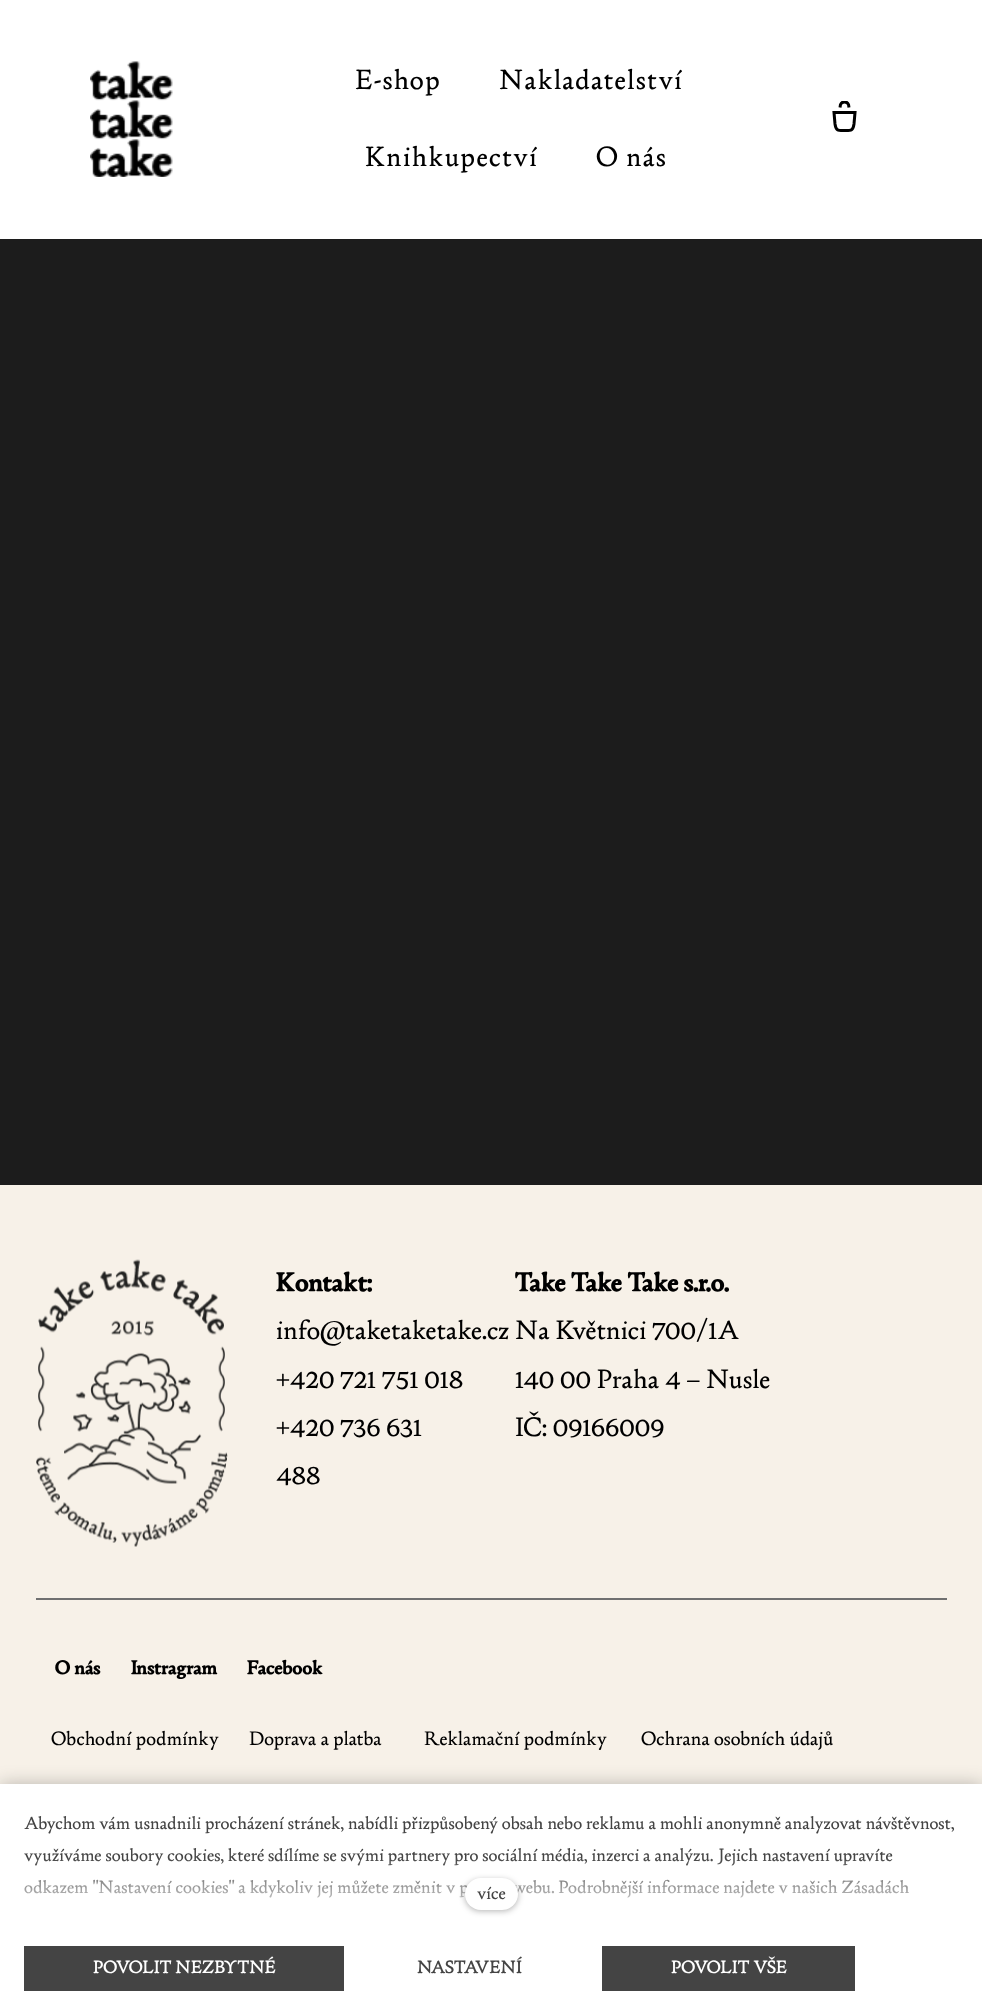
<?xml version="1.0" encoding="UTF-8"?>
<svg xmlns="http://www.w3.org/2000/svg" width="982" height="2014">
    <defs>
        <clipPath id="clip1"><rect x="831" y="101" width="27" height="31"/></clipPath>
        <filter id="blur1" x="-50%" y="-200%" width="200%" height="500%"><feGaussianBlur stdDeviation="9"/></filter>
        <linearGradient id="g1" gradientUnits="userSpaceOnUse" x1="491" y1="1922" x2="491" y2="1857"><stop offset="0" stop-color="#FFFFFF"/><stop offset="1" stop-color="#FFFFFF" stop-opacity="0"/></linearGradient>
        <filter id="blur2" x="-50%" y="-200%" width="200%" height="500%"><feGaussianBlur stdDeviation="3"/></filter>
    </defs>
    <rect width="100%" height="100%" fill="#1C1C1C"/>
    <rect x="0" y="0" width="982" height="239" fill="#FFFFFF"/>
    <image x="90" y="61" width="83" height="116" href="img_01.png"/>
    <text x="355" y="89" font-family="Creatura" font-size="30" letter-spacing="1.25" fill="#000000">E-shop</text>
    <text x="499" y="89" font-family="Creatura" font-size="30" letter-spacing="1.25" fill="#000000">Nakladatelství</text>
    <text x="365" y="166" font-family="Creatura" font-size="30" letter-spacing="1.25" fill="#000000">Knihkupectví</text>
    <text x="596" y="166" font-family="Creatura" font-size="30" letter-spacing="1.25" fill="#000000">O nás</text>
    <g clip-path="url(#clip1)">
        <path d="M 849 107.5 L 848.5 104.5 C 847 101 842 101 840.5 104.5 L 840 107.5" fill="none" stroke="#000000" stroke-width="3"/>
    </g>
    <path d="M 855 112.5 L 854 124 C 853 131 851 130.5 844.5 130.5 C 838 130.5 836 131 835 124 L 834 112.5 Z" fill="none" stroke="#000000" stroke-width="3"/>
    <rect x="0" y="1185" width="982" height="599" fill="#F7F1E8"/>
    <image x="36" y="1259" width="192" height="288" href="img_02.png"/>
    <text x="276" y="1291" font-family="Creatura" font-size="28.75" font-weight="700" fill="#000000">Kontakt:</text>
    <text font-family="Creatura" font-size="28.75" fill="#000000">
        <tspan x="276" y="1339">info@taketaketake.cz Na Květnici 700/1A</tspan>
        <tspan x="276" y="1388">+420 721 751 018</tspan>
        <tspan x="276" y="1436">+420 736 631</tspan>
        <tspan x="276" y="1484">488</tspan>
    </text>
    <text x="515" y="1291" font-family="Creatura" font-size="28.75" font-weight="700" fill="#000000">Take Take Take s.r.o.</text>
    <text font-family="Creatura" font-size="28.75" fill="#000000">
        <tspan x="515" y="1388">140 00 Praha 4 – Nusle</tspan>
        <tspan x="515" y="1436">IČ: 09166009</tspan>
    </text>
    <rect x="36" y="1598" width="911" height="2" fill="#707070"/>
    <text x="55" y="1674" font-family="Creatura" font-size="21" font-weight="700" fill="#000000">O nás</text>
    <text x="131" y="1674" font-family="Creatura" font-size="21" font-weight="700" fill="#000000">Instragram</text>
    <text x="247" y="1674" font-family="Creatura" font-size="21" font-weight="700" fill="#000000">Facebook</text>
    <text x="51" y="1745" font-family="Creatura" font-size="21" fill="#000000">Obchodní podmínky</text>
    <text x="249" y="1745" font-family="Creatura" font-size="21" fill="#000000">Doprava a platba</text>
    <text x="424" y="1745" font-family="Creatura" font-size="21" fill="#000000">Reklamační podmínky</text>
    <text x="641" y="1745" font-family="Creatura" font-size="21" fill="#000000">Ochrana osobních údajů</text>
    <rect x="0" y="1784" width="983" height="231" fill="#000000" fill-opacity="0.25" filter="url(#blur1)"/>
    <rect x="0" y="1784" width="982" height="230" fill="#FFFFFF"/>
    <text font-family="Creatura" font-size="19.2" fill="#444444">
        <tspan x="24" y="1829">Abychom vám usnadnili procházení stránek, nabídli přizpůsobený obsah nebo reklamu a mohli anonymně analyzovat návštěvnost,</tspan>
        <tspan x="24" y="1861">využíváme soubory cookies, které sdílíme se svými partnery pro sociální média, inzerci a analýzu. Jejich nastavení upravíte</tspan>
        <tspan x="24" y="1893">odkazem "Nastavení cookies" a kdykoliv jej můžete změnit v p</tspan>
    </text>
    <text x="513" y="1893" font-family="Creatura" font-size="19.2" fill="#444444">webu. Podrobnější informace najdete v našich Zásadách</text>
    <rect x="24" y="1858" width="886" height="40" fill="url(#g1)"/>
    <rect x="465" y="1880" width="53" height="31" rx="15.5" fill="#000000" fill-opacity="0.3" filter="url(#blur2)"/>
    <rect x="465" y="1878" width="53" height="32" rx="16" fill="#FFFFFF"/>
    <text x="477" y="1899" font-family="Creatura" font-size="19.2" fill="#444444">více</text>
    <rect x="24" y="1946" width="320" height="45" fill="#444444"/>
    <text x="93" y="1973" font-family="Creatura" font-size="19.2" font-weight="500" fill="#FFFFFF">POVOLIT NEZBYTNÉ</text>
    <text x="417" y="1973" font-family="Creatura" font-size="19.2" font-weight="500" fill="#444444">NASTAVENÍ</text>
    <rect x="602" y="1946" width="253" height="45" fill="#444444"/>
    <text x="671" y="1973" font-family="Creatura" font-size="19.2" font-weight="500" fill="#FFFFFF">POVOLIT VŠE</text>
</svg>
